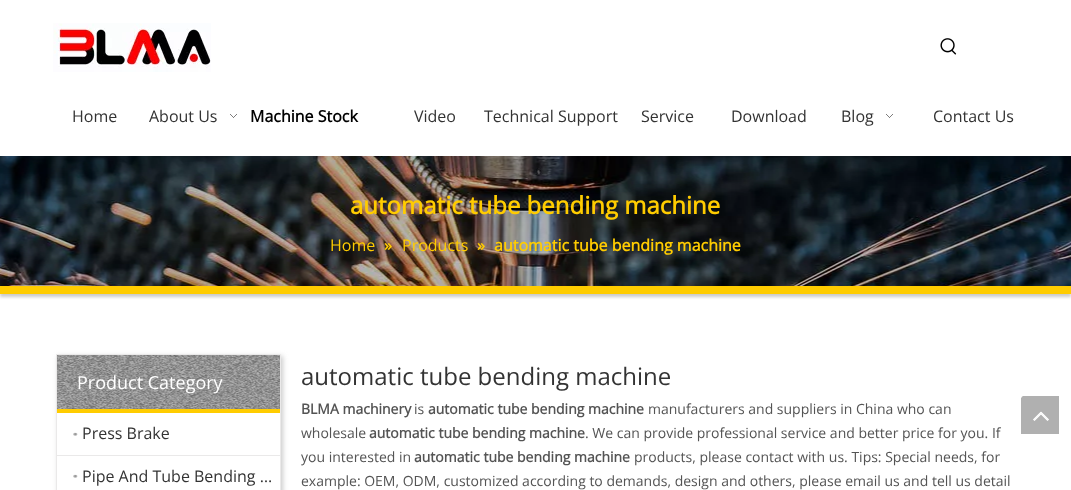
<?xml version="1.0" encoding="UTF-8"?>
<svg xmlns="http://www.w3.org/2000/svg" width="1071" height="490">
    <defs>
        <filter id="blur1" x="-50%" y="-200%" width="200%" height="500%"><feGaussianBlur stdDeviation="1.5"/></filter>
        <clipPath id="clip1"><path d="M 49 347 H 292 V 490 H 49 Z M 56 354 H 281 V 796 H 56 Z" clip-rule="evenodd"/></clipPath>
        <filter id="blur2" x="-50%" y="-200%" width="200%" height="500%"><feGaussianBlur stdDeviation="2.5"/></filter>
    </defs>
    <rect width="100%" height="100%" fill="#FFFFFF"/>
    <image x="53" y="23" width="158" height="49" href="img_01.png"/>
    <image x="940" y="38" width="17" height="17" href="img_02.png"/>
    <text x="72" y="122" font-family="Open Sans" font-size="16" fill="#333333">Home</text>
    <text x="149" y="122" font-family="Open Sans" font-size="16" fill="#333333">About Us</text>
    <image x="230" y="114" width="7" height="4" href="img_03.png"/>
    <text x="250" y="122" font-family="Open Sans" font-size="16" font-weight="700" fill="#000000">Machine Stock</text>
    <text x="414" y="122" font-family="Open Sans" font-size="16" fill="#333333">Video</text>
    <text x="484" y="122" font-family="Open Sans" font-size="16" fill="#333333">Technical Support</text>
    <text x="641" y="122" font-family="Open Sans" font-size="16" fill="#333333">Service</text>
    <text x="731" y="122" font-family="Open Sans" font-size="16" fill="#333333">Download</text>
    <text x="841" y="122" font-family="Open Sans" font-size="16" fill="#333333">Blog</text>
    <image x="886" y="114" width="7" height="4" href="img_03.png"/>
    <text x="933" y="122" font-family="Open Sans" font-size="16" fill="#333333">Contact Us</text>
    <rect x="0" y="159" width="1071" height="138" fill="#CCCCCC" filter="url(#blur1)"/>
    <image x="0" y="156" width="1071" height="130" href="img_04.png"/>
    <rect x="0" y="286" width="1071" height="8" fill="#FFCC00"/>
    <text x="350" y="214" font-family="Open Sans" font-size="24" font-weight="700" fill="#FFCC00">automatic tube bending machine</text>
    <text x="330" y="251" font-family="Open Sans" font-size="16" fill="#FFCC00">Home</text>
    <text x="384" y="251" font-family="Open Sans" font-size="16" font-weight="700" fill="#FFCC00">»</text>
    <text x="402" y="251" font-family="Open Sans" font-size="16" fill="#FFCC00">Products</text>
    <text x="477" y="251" font-family="Open Sans" font-size="16" font-weight="700" fill="#FFCC00">»</text>
    <text x="494" y="251" font-family="Open Sans" font-size="16" font-weight="700" fill="#FFCC00">automatic tube bending machine</text>
    <g clip-path="url(#clip1)">
        <rect x="58" y="356" width="225" height="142" fill="#CCCCCC" filter="url(#blur2)"/>
    </g>
    <rect x="56.5" y="354.5" width="224" height="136" fill="none" stroke="#EAE9E9"/>
    <image x="57" y="355" width="223" height="54" href="img_05.png"/>
    <rect x="57" y="409" width="223" height="4" fill="#FFCC00"/>
    <text x="77" y="389" font-family="Open Sans" font-size="18" fill="#FFFFFF">Product Category</text>
    <image x="73" y="432" width="5" height="4" href="img_06.png"/>
    <text x="82" y="439" font-family="Open Sans" font-size="16" fill="#333333">Press Brake</text>
    <rect x="57" y="455" width="223" height="1" fill="#EAE9E9"/>
    <image x="73" y="474" width="5" height="4" href="img_06.png"/>
    <text x="82" y="482" font-family="Open Sans" font-size="16" fill="#333333">Pipe And Tube Bending …</text>
    <text x="301" y="385" font-family="Open Sans" font-size="24" fill="#333333">automatic tube bending machine</text>
    <text x="301" y="414" font-family="Open Sans" font-size="14" font-weight="700" fill="#545454">BLMA machinery</text>
    <text x="414" y="414" font-family="Open Sans" font-size="14" fill="#545454">is</text>
    <text x="428" y="414" font-family="Open Sans" font-size="14" font-weight="700" fill="#545454">automatic tube bending machine</text>
    <text x="648" y="414" font-family="Open Sans" font-size="14" fill="#545454">manufacturers and suppliers in China who can</text>
    <text x="301" y="438" font-family="Open Sans" font-size="14" fill="#545454">wholesale</text>
    <text x="369" y="438" font-family="Open Sans" font-size="14" font-weight="700" fill="#545454">automatic tube bending machine</text>
    <text x="585" y="438" font-family="Open Sans" font-size="14" fill="#545454">. We can provide professional service and better price for you. If</text>
    <text x="301" y="462" font-family="Open Sans" font-size="14" fill="#545454">you interested in</text>
    <text x="414" y="462" font-family="Open Sans" font-size="14" font-weight="700" fill="#545454">automatic tube bending machine</text>
    <text x="634" y="462" font-family="Open Sans" font-size="14" fill="#545454">products, please contact with us. Tips: Special needs, for</text>
    <text x="301" y="486" font-family="Open Sans" font-size="14" fill="#545454">example: OEM, ODM, customized according to demands, design and others, please email us and tell us detail</text>
    <image x="1021" y="396" width="38" height="38" href="img_07.png"/>
</svg>
